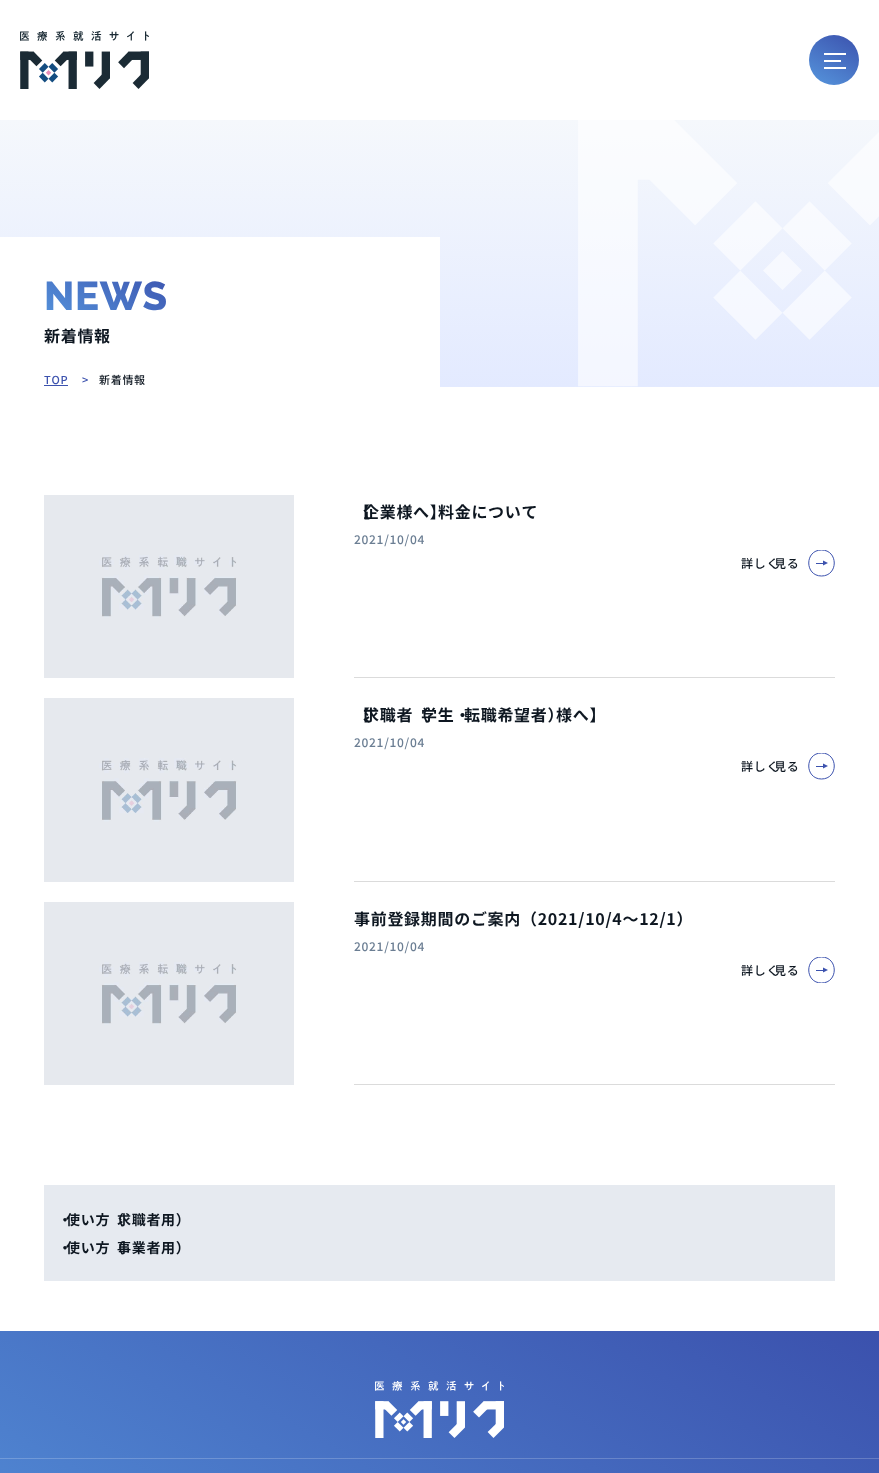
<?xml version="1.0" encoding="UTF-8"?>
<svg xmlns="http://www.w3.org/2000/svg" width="879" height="1473">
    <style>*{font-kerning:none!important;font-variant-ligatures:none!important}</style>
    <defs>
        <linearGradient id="g1" gradientUnits="userSpaceOnUse" x1="78" y1="344" x2="134" y2="248"><stop offset="0" stop-color="#5696DD"/><stop offset="1" stop-color="#3B51AD"/></linearGradient>
        <linearGradient id="g2" gradientUnits="userSpaceOnUse" x1="817" y1="90" x2="851" y2="30"><stop offset="0" stop-color="#5696DD"/><stop offset="1" stop-color="#3B51AD"/></linearGradient>
        <linearGradient id="g3" gradientUnits="userSpaceOnUse" x1="440" y1="120" x2="440" y2="387"><stop offset="0" stop-color="#F5F8FC"/><stop offset="1" stop-color="#E3EAFF"/></linearGradient>
        <clipPath id="clip1"><rect x="808" y="550" width="27" height="27"/></clipPath>
        <clipPath id="clip2"><rect x="808" y="753" width="27" height="27"/></clipPath>
        <clipPath id="clip3"><rect x="808" y="957" width="27" height="26"/></clipPath>
        <linearGradient id="g4" gradientUnits="userSpaceOnUse" x1="243" y1="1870" x2="636" y2="1191"><stop offset="0" stop-color="#5696DD"/><stop offset="1" stop-color="#3B51AD"/></linearGradient>
        <linearGradient id="g5" gradientUnits="userSpaceOnUse" x1="243" y1="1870" x2="636" y2="1191"><stop offset="0" stop-color="#78ABE4"/><stop offset="1" stop-color="#6274BD"/></linearGradient>
    </defs>
    <rect width="100%" height="100%" fill="#FFFFFF"/>
    <image x="20" y="31" width="129" height="58" href="img_01.png"/>
    <circle cx="834" cy="60" r="25" fill="url(#g2)"/>
    <rect x="824" y="53" width="22" height="2" fill="#FFFFFF"/>
    <rect x="824" y="60" width="17" height="2" fill="#FFFFFF"/>
    <rect x="824" y="67" width="22" height="2" fill="#FFFFFF"/>
    <rect x="0" y="120" width="879" height="267" fill="url(#g3)"/>
    <rect x="0" y="237" width="440" height="150" fill="#FFFFFF"/>
    <image x="578" y="120" width="301" height="267" href="img_02.png"/>
    <text x="44" y="310" font-family="Raleway" font-size="40" font-weight="800" letter-spacing="0.7" fill="url(#g1)">NEWS</text>
    <text x="44" y="342" font-family="Noto Sans JP" font-size="16" font-weight="700" letter-spacing="0.7" fill="#0E1721">新着情報</text>
    <text x="44" y="384" font-family="Noto Sans JP" font-size="11" font-weight="500" letter-spacing="0.7" fill="#3C52AE">TOP</text>
    <rect x="44" y="385" width="24" height="1" fill="#3C52AE"/>
    <text x="82" y="384" font-family="Noto Sans JP" font-size="11" font-weight="500" letter-spacing="0.7" fill="#3C52AE">&gt;</text>
    <text x="99" y="384" font-family="Noto Sans JP" font-size="11" font-weight="500" letter-spacing="0.7" fill="#0E1721">新着情報</text>
    <image x="44" y="495" width="250" height="183" href="img_03.png"/>
    <rect x="354" y="677" width="481" height="1" fill="#DBDBDB"/>
    <text x="354" y="518" font-family="Noto Sans JP" font-size="16" font-weight="700" letter-spacing="0.7" fill="#0E1721">【</text>
    <text x="363" y="518" font-family="Noto Sans JP" font-size="16" font-weight="700" letter-spacing="0.7" fill="#0E1721">企業様へ】</text>
    <text x="438" y="518" font-family="Noto Sans JP" font-size="16" font-weight="700" letter-spacing="0.7" fill="#0E1721">料金について</text>
    <text x="354" y="544" font-family="Noto Sans JP" font-size="12" font-weight="500" letter-spacing="0.7" fill="#6B7E93">2021/10/04</text>
    <text x="741" y="568" font-family="Noto Sans JP" font-size="12" font-weight="500" letter-spacing="0.7" fill="#0E1721">詳しく</text>
    <text x="774" y="568" font-family="Noto Sans JP" font-size="12" font-weight="500" letter-spacing="0.7" fill="#0E1721">見る</text>
    <g clip-path="url(#clip1)">
        <path d="M 821.5 576 C 804.5 576 804.5 550 821.5 550 C 838.5 550 838.5 576 821.5 576 Z" fill="none" stroke="#3C52AE"/>
    </g>
    <path d="M 828 563 L 823 565.5 V 560.5 Z" fill="#3C52AE"/>
    <rect x="816" y="563" width="9" height="1" fill="#3C52AE"/>
    <image x="44" y="698" width="250" height="184" href="img_04.png"/>
    <rect x="354" y="881" width="481" height="1" fill="#DBDBDB"/>
    <text x="354" y="721" font-family="Noto Sans JP" font-size="16" font-weight="700" letter-spacing="0.7" fill="#0E1721">【</text>
    <text x="363" y="721" font-family="Noto Sans JP" font-size="16" font-weight="700" letter-spacing="0.7" fill="#0E1721">求職者（</text>
    <text x="421" y="721" font-family="Noto Sans JP" font-size="16" font-weight="700" letter-spacing="0.7" fill="#0E1721">学生・</text>
    <text x="464" y="721" font-family="Noto Sans JP" font-size="16" font-weight="700" letter-spacing="0.7" fill="#0E1721">転職希望者）</text>
    <text x="556" y="721" font-family="Noto Sans JP" font-size="16" font-weight="700" letter-spacing="0.7" fill="#0E1721">様へ】</text>
    <text x="354" y="747" font-family="Noto Sans JP" font-size="12" font-weight="500" letter-spacing="0.7" fill="#6B7E93">2021/10/04</text>
    <text x="741" y="771" font-family="Noto Sans JP" font-size="12" font-weight="500" letter-spacing="0.7" fill="#0E1721">詳しく</text>
    <text x="774" y="771" font-family="Noto Sans JP" font-size="12" font-weight="500" letter-spacing="0.7" fill="#0E1721">見る</text>
    <g clip-path="url(#clip2)">
        <path d="M 821.5 779 C 804.5 779 804.5 753 821.5 753 C 838.5 753 838.5 779 821.5 779 Z" fill="none" stroke="#3C52AE"/>
    </g>
    <path d="M 828 766 L 823 768.5 V 763.5 Z" fill="#3C52AE"/>
    <rect x="816" y="766" width="9" height="1" fill="#3C52AE"/>
    <image x="44" y="902" width="250" height="183" href="img_03.png"/>
    <rect x="354" y="1084" width="481" height="1" fill="#DBDBDB"/>
    <text x="354" y="925" font-family="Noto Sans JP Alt" font-size="16" font-weight="700" letter-spacing="0.7" fill="#0E1721">事前登録期間のご案内（2021/10/4〜12/1）</text>
    <text x="354" y="951" font-family="Noto Sans JP" font-size="12" font-weight="500" letter-spacing="0.7" fill="#6B7E93">2021/10/04</text>
    <text x="741" y="975" font-family="Noto Sans JP" font-size="12" font-weight="500" letter-spacing="0.7" fill="#0E1721">詳しく</text>
    <text x="774" y="975" font-family="Noto Sans JP" font-size="12" font-weight="500" letter-spacing="0.7" fill="#0E1721">見る</text>
    <g clip-path="url(#clip3)">
        <path d="M 821.5 983 C 804.5 983 804.5 957 821.5 957 C 838.5 957 838.5 983 821.5 983 Z" fill="none" stroke="#3C52AE"/>
    </g>
    <path d="M 828 970 L 823 972.5 V 967.5 Z" fill="#3C52AE"/>
    <rect x="816" y="970" width="9" height="1" fill="#3C52AE"/>
    <rect x="44" y="1185" width="791" height="96" fill="#E6EAF0"/>
    <text x="58" y="1225" font-family="Noto Sans JP" font-size="14" font-weight="700" letter-spacing="0.7" fill="#0E1721">・</text>
    <text x="66" y="1225" font-family="Noto Sans JP" font-size="14" font-weight="700" letter-spacing="0.7" fill="#0E1721">使い方（</text>
    <text x="117" y="1225" font-family="Noto Sans JP" font-size="14" font-weight="700" letter-spacing="0.7" fill="#0E1721">求職者用）</text>
    <text x="58" y="1253" font-family="Noto Sans JP" font-size="14" font-weight="700" letter-spacing="0.7" fill="#0E1721">・</text>
    <text x="66" y="1253" font-family="Noto Sans JP" font-size="14" font-weight="700" letter-spacing="0.7" fill="#0E1721">使い方（</text>
    <text x="117" y="1253" font-family="Noto Sans JP" font-size="14" font-weight="700" letter-spacing="0.7" fill="#0E1721">事業者用）</text>
    <rect x="0" y="1331" width="879" height="142" fill="url(#g4)"/>
    <rect x="0" y="1458" width="879" height="1" fill="url(#g5)"/>
    <image x="375" y="1381" width="129" height="57" href="img_05.png"/>
</svg>
